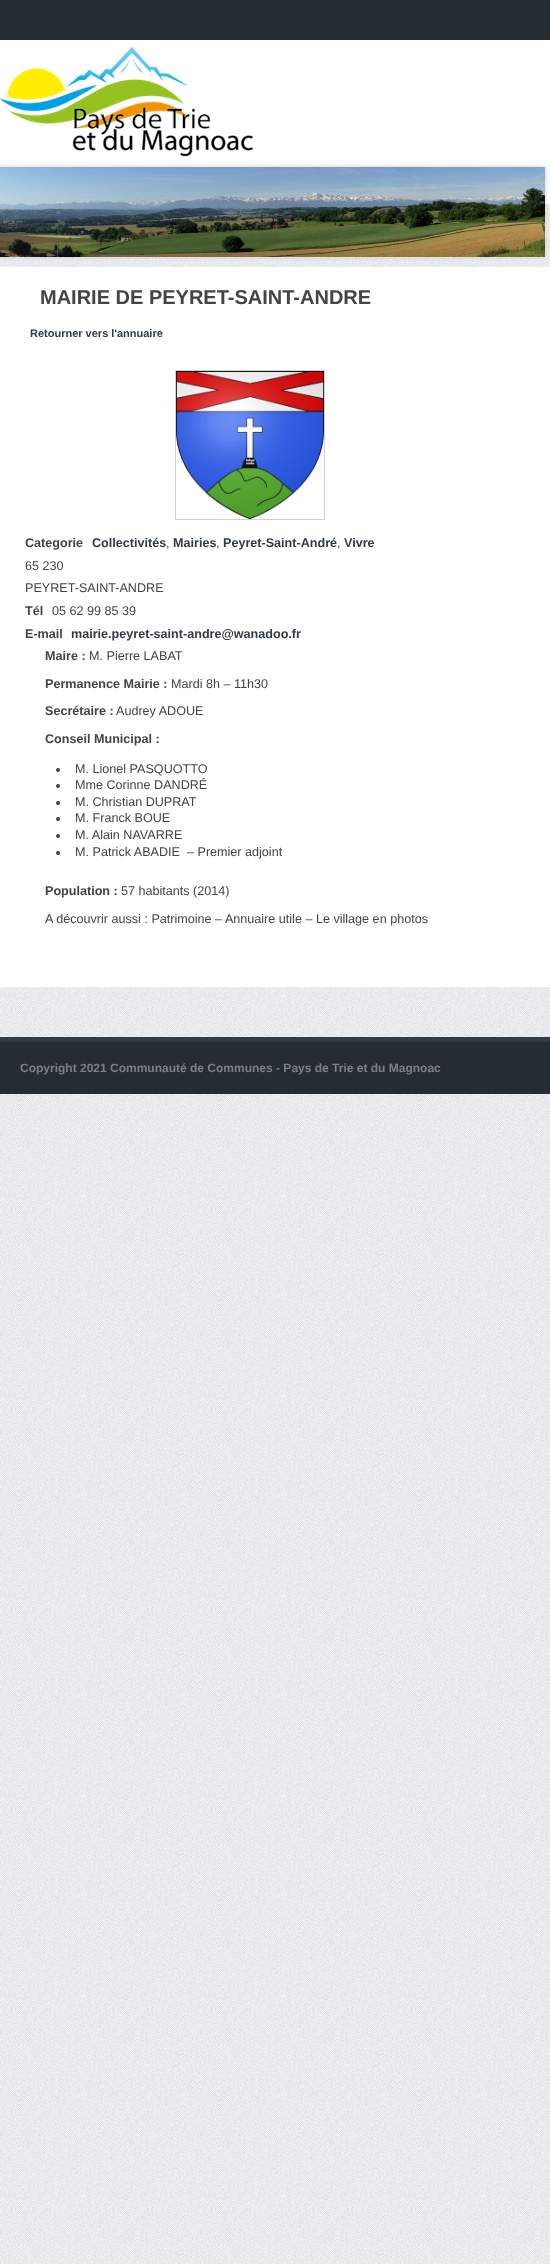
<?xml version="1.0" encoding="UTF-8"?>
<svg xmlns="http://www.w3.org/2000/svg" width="550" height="2264">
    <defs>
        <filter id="blur1" x="-50%" y="-200%" width="200%" height="500%"><feGaussianBlur stdDeviation="2.5"/></filter>
    </defs>
    <rect width="100%" height="100%" fill="#FFFFFF"/>
    <image x="0" y="204" width="550" height="2060" href="img_01.png"/>
    <rect x="0" y="0" width="550" height="40" fill="#262C33"/>
    <image x="0" y="47" width="253" height="110" href="img_02.png"/>
    <rect x="-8" y="167" width="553" height="90" fill="#CCCCCC" filter="url(#blur1)"/>
    <image x="0" y="167" width="545" height="90" href="img_03.png"/>
    <rect x="0" y="267" width="550" height="720" fill="#FFFFFF"/>
    <text x="40" y="304" font-family="Liberation Sans" font-size="20" font-weight="700" fill="#444444">MAIRIE DE PEYRET-SAINT-ANDRE</text>
    <text x="30" y="337" font-family="Liberation Sans" font-size="11" font-weight="700" fill="#323B44">Retourner vers l'annuaire</text>
    <rect x="175.5" y="370.5" width="149" height="149" fill="none" stroke="#D2D2D2"/>
    <image x="176" y="371" width="148" height="148" href="img_04.png"/>
    <text x="25" y="547" font-family="Liberation Sans" font-size="12.6" font-weight="700" fill="#444444">Categorie</text>
    <text x="92" y="547" font-family="Liberation Sans" font-size="12.6" font-weight="700" fill="#323B44">Collectivités</text>
    <text x="166" y="547" font-family="Liberation Sans" font-size="12.6" fill="#444444">,</text>
    <text x="173" y="547" font-family="Liberation Sans" font-size="12.6" font-weight="700" fill="#323B44">Mairies</text>
    <text x="216" y="547" font-family="Liberation Sans" font-size="12.6" fill="#444444">,</text>
    <text x="223" y="547" font-family="Liberation Sans" font-size="12.6" font-weight="700" fill="#323B44">Peyret-Saint-André</text>
    <text x="337" y="547" font-family="Liberation Sans" font-size="12.6" fill="#444444">,</text>
    <text x="344" y="547" font-family="Liberation Sans" font-size="12.6" font-weight="700" fill="#323B44">Vivre</text>
    <text font-family="Liberation Sans" font-size="12.6" fill="#444444">
        <tspan x="25" y="570">65 230</tspan>
        <tspan x="25" y="592">PEYRET-SAINT-ANDRE</tspan>
    </text>
    <text x="25" y="615" font-family="Liberation Sans" font-size="12.6" font-weight="700" fill="#444444">Tél</text>
    <text x="52" y="615" font-family="Liberation Sans" font-size="12.6" fill="#444444">05 62 99 85 39</text>
    <text x="25" y="638" font-family="Liberation Sans" font-size="12.6" font-weight="700" fill="#444444">E-mail</text>
    <text x="71" y="638" font-family="Liberation Sans" font-size="12.6" font-weight="700" fill="#323B44">mairie.peyret-saint-andre@wanadoo.fr</text>
    <text x="45" y="660" font-family="Liberation Sans" font-size="12.6" font-weight="700" fill="#444444">Maire :</text>
    <text x="89" y="660" font-family="Liberation Sans" font-size="12.6" fill="#444444">M. Pierre LABAT</text>
    <text x="45" y="688" font-family="Liberation Sans" font-size="12.6" font-weight="700" fill="#444444">Permanence Mairie :</text>
    <text x="171" y="688" font-family="Liberation Sans" font-size="12.6" fill="#444444">Mardi 8h – 11h30</text>
    <text x="45" y="715" font-family="Liberation Sans" font-size="12.6" font-weight="700" fill="#444444">Secrétaire :</text>
    <text x="116" y="715" font-family="Liberation Sans" font-size="12.6" fill="#444444">Audrey ADOUE</text>
    <text x="45" y="743" font-family="Liberation Sans" font-size="12.6" font-weight="700" fill="#444444">Conseil Municipal :</text>
    <circle cx="58" cy="770" r="2" fill="#444444"/>
    <text x="75" y="773" font-family="Liberation Sans" font-size="12.6" fill="#444444">M. Lionel PASQUOTTO</text>
    <circle cx="58" cy="786" r="2" fill="#444444"/>
    <text x="75" y="789" font-family="Liberation Sans" font-size="12.6" fill="#444444">Mme Corinne DANDRÉ</text>
    <circle cx="58" cy="803" r="2" fill="#444444"/>
    <text x="75" y="806" font-family="Liberation Sans" font-size="12.6" fill="#444444">M. Christian DUPRAT</text>
    <circle cx="58" cy="819" r="2" fill="#444444"/>
    <text x="75" y="822" font-family="Liberation Sans" font-size="12.6" fill="#444444">M. Franck BOUE</text>
    <circle cx="58" cy="836" r="2" fill="#444444"/>
    <text x="75" y="839" font-family="Liberation Sans" font-size="12.6" fill="#444444">M. Alain NAVARRE</text>
    <circle cx="58" cy="853" r="2" fill="#444444"/>
    <text x="75" y="856" font-family="Liberation Sans" font-size="12.6" fill="#444444" xml:space="preserve">M. Patrick ABADIE  – Premier adjoint</text>
    <text x="45" y="895" font-family="Liberation Sans" font-size="12.6" font-weight="700" fill="#444444">Population :</text>
    <text x="121" y="895" font-family="Liberation Sans" font-size="12.6" fill="#444444">57 habitants (2014)</text>
    <text x="45" y="923" font-family="Liberation Sans" font-size="12.6" fill="#444444">A découvrir aussi : Patrimoine – Annuaire utile – Le village en photos</text>
    <rect x="0" y="1037" width="550" height="5" fill="#323B44"/>
    <rect x="0" y="1042" width="550" height="52" fill="#262C33"/>
    <text x="20" y="1072" font-family="Liberation Sans" font-size="12" font-weight="700" fill="#7D8085">Copyright 2021 Communauté de Communes - Pays de Trie et du Magnoac</text>
</svg>
